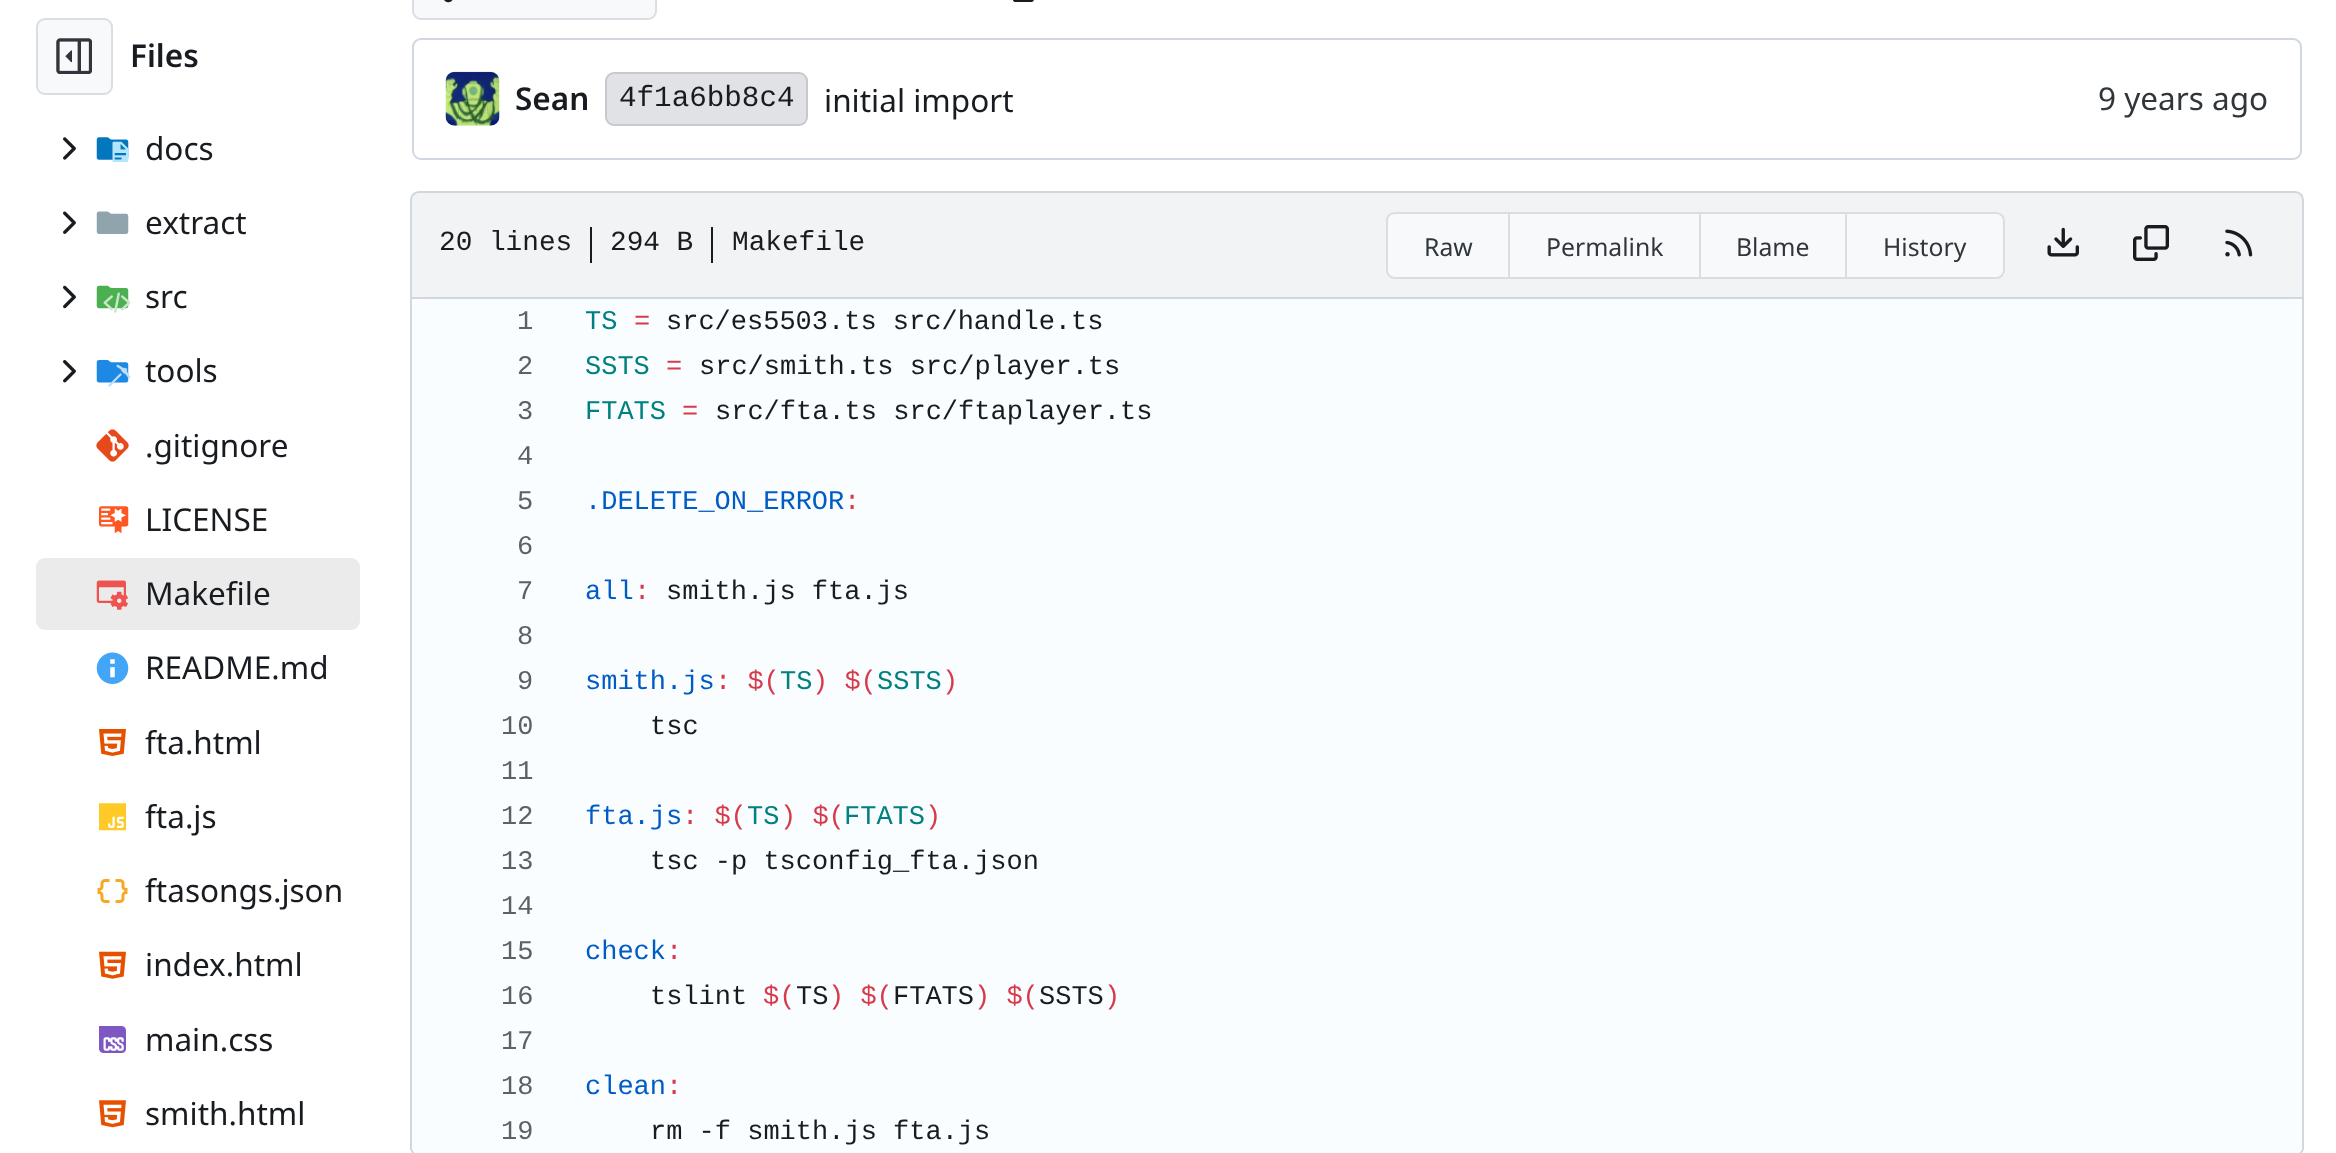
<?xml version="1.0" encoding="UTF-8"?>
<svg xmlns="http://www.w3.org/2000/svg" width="2336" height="1153">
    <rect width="100%" height="100%" fill="#FFFFFF"/>
    <rect x="36" y="18" width="77" height="77" rx="9" fill="#F8F9FB"/>
    <rect x="37" y="19" width="75" height="75" rx="8" fill="none" stroke="#000017" stroke-opacity="0.11" stroke-width="2"/>
    <image x="56" y="38" width="36" height="36" href="img_01.png"/>
    <text x="130" y="67" font-family="Noto Sans" font-size="31.5" font-weight="600" fill="#181C21">Files</text>
    <image x="63" y="137" width="13" height="23" href="img_02.png"/>
    <image x="96" y="137" width="33" height="25" href="img_03.png"/>
    <text x="145" y="160" font-family="Noto Sans" font-size="31.5" fill="#181C21">docs</text>
    <image x="63" y="211" width="13" height="23" href="img_04.png"/>
    <image x="96" y="211" width="33" height="23" href="img_05.png"/>
    <text x="145" y="234" font-family="Noto Sans" font-size="31.5" fill="#181C21">extract</text>
    <image x="63" y="285" width="13" height="24" href="img_06.png"/>
    <image x="96" y="285" width="35" height="28" href="img_07.png"/>
    <text x="145" y="308" font-family="Noto Sans" font-size="31.5" fill="#181C21">src</text>
    <image x="63" y="360" width="13" height="23" href="img_08.png"/>
    <image x="96" y="360" width="35" height="27" href="img_09.png"/>
    <text x="145" y="382" font-family="Noto Sans" font-size="31.5" fill="#181C21">tools</text>
    <image x="96" y="429" width="33" height="33" href="img_10.png"/>
    <text x="145" y="457" font-family="Noto Sans" font-size="31.5" fill="#181C21">.gitignore</text>
    <image x="99" y="506" width="30" height="28" href="img_11.png"/>
    <text x="145" y="531" font-family="Noto Sans" font-size="31.5" fill="#181C21">LICENSE</text>
    <rect x="36" y="558" width="324" height="72" rx="9" fill="#EBEBEC"/>
    <image x="96" y="580" width="32" height="30" href="img_12.png"/>
    <text x="145" y="605" font-family="Noto Sans" font-size="31.5" fill="#181C21">Makefile</text>
    <image x="96" y="652" width="33" height="32" href="img_13.png"/>
    <text x="145" y="679" font-family="Noto Sans" font-size="31.5" fill="#181C21">README.md</text>
    <image x="99" y="729" width="27" height="27" href="img_14.png"/>
    <text x="145" y="754" font-family="Noto Sans" font-size="31.5" fill="#181C21">fta.html</text>
    <image x="99" y="803" width="27" height="28" href="img_15.png"/>
    <text x="145" y="828" font-family="Noto Sans" font-size="31.5" fill="#181C21">fta.js</text>
    <image x="97" y="879" width="31" height="24" href="img_16.png"/>
    <text x="145" y="902" font-family="Noto Sans" font-size="31.5" fill="#181C21">ftasongs.json</text>
    <image x="99" y="951" width="27" height="28" href="img_17.png"/>
    <text x="145" y="976" font-family="Noto Sans" font-size="31.5" fill="#181C21">index.html</text>
    <image x="99" y="1026" width="27" height="27" href="img_18.png"/>
    <text x="145" y="1051" font-family="Noto Sans" font-size="31.5" fill="#181C21">main.css</text>
    <image x="99" y="1100" width="27" height="28" href="img_19.png"/>
    <text x="145" y="1125" font-family="Noto Sans" font-size="31.5" fill="#181C21">smith.html</text>
    <rect x="412" y="-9" width="245" height="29" rx="9" fill="#F8F9FB"/>
    <rect x="413" y="-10" width="243" height="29" rx="8" fill="none" stroke="#000017" stroke-opacity="0.11" stroke-width="2"/>
    <image x="444" y="0" width="9" height="3" href="img_20.png"/>
    <image x="1013" y="0" width="21" height="2" href="img_21.png"/>
    <rect x="413" y="39" width="1888" height="120" rx="8" fill="none" stroke="#D0D7DE" stroke-width="2"/>
    <image x="445" y="71" width="55" height="55" href="img_22.png"/>
    <text x="515" y="110" font-family="Noto Sans" font-size="31.5" font-weight="600" fill="#181C21">Sean</text>
    <rect x="605" y="72" width="203" height="54" rx="9" fill="#E0E2E5"/>
    <rect x="606" y="73" width="201" height="52" rx="8" fill="none" stroke="#000017" stroke-opacity="0.11" stroke-width="2"/>
    <text x="619" y="106" font-family="Liberation Mono" font-size="29.25" fill="#181C21">4f1a6bb8c4</text>
    <text x="824" y="112" font-family="Noto Sans" font-size="31.5" fill="#181C21">initial import</text>
    <text x="2098" y="110" font-family="Noto Sans" font-size="31.5" fill="#30363B">9 years ago</text>
    <path d="M 419 192 H 2295 C 2299.5 192 2303 195.5 2303 200 V 298 H 411 V 200 C 411 195.5 414.5 192 419 192 Z" fill="#F1F3F5" stroke="#D0D7DE" stroke-width="2"/>
    <text x="439" y="250" font-family="Liberation Mono" font-size="27.75" fill="#181C21">20 lines</text>
    <rect x="590" y="227" width="2" height="36" fill="#181C21"/>
    <text x="610" y="250" font-family="Liberation Mono" font-size="27.75" fill="#181C21">294 B</text>
    <rect x="711" y="227" width="2" height="36" fill="#181C21"/>
    <text x="732" y="250" font-family="Liberation Mono" font-size="27.75" fill="#181C21">Makefile</text>
    <path d="M 1395 212 H 1508 V 279 H 1395 C 1390 279 1386 275 1386 270 V 221 C 1386 216 1390 212 1395 212 Z" fill="#F8F9FB"/>
    <path d="M 1395 212 H 1508 V 279 H 1395 C 1390 279 1386 275 1386 270 V 220 C 1386 216 1390 212 1395 212 Z M 1395 214 H 1508 V 277 H 1395 C 1391 277 1388 274 1388 270 V 220 C 1388 217 1391 214 1395 214 Z" fill="#000017" fill-opacity="0.11" fill-rule="evenodd"/>
    <text x="1424" y="256" font-family="Noto Sans" font-size="24.75" fill="#30363B">Raw</text>
    <rect x="1508" y="212" width="337" height="67" fill="#F8F9FB"/>
    <path d="M 1508 212 H 1699 V 214 H 1510 Z" fill="#DCDDE1"/>
    <path d="M 1699 279 H 1508 L 1510 277 H 1699 Z" fill="#DCDDE1"/>
    <path d="M 1508 279 V 212 L 1510 214 V 277 Z" fill="#000017" fill-opacity="0.11"/>
    <text x="1546" y="256" font-family="Noto Sans" font-size="24.75" fill="#30363B">Permalink</text>
    <path d="M 1699 212 H 1845 V 214 H 1701 Z" fill="#DCDDE1"/>
    <path d="M 1845 279 H 1699 L 1701 277 H 1845 Z" fill="#DCDDE1"/>
    <path d="M 1699 279 V 212 L 1701 214 V 277 Z" fill="#000017" fill-opacity="0.11"/>
    <text x="1736" y="256" font-family="Noto Sans" font-size="24.75" fill="#30363B">Blame</text>
    <path d="M 1845 212 H 1996 C 2001 212 2005 216 2005 221 V 270 C 2005 275 2001 279 1996 279 H 1845 Z" fill="#F8F9FB"/>
    <path d="M 1846 213 H 1996 C 2000.5 213 2004 216.5 2004 221 V 270 C 2004 274.5 2000.5 278 1996 278 H 1846 Z" fill="none" stroke="#000017" stroke-opacity="0.11" stroke-width="2"/>
    <text x="1883" y="256" font-family="Noto Sans" font-size="24.75" fill="#30363B">History</text>
    <image x="2047" y="227" width="32" height="30" href="img_23.png"/>
    <image x="2133" y="225" width="36" height="36" href="img_24.png"/>
    <image x="2225" y="229" width="28" height="28" href="img_25.png"/>
    <path d="M 410 299 H 2304 V 1148 C 2304 1152 2300 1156 2295 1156 H 418 C 414 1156 410 1152 410 1148 Z M 412 299 H 2302 V 1148 C 2302 1151 2299 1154 2295 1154 H 418 C 415 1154 412 1151 412 1148 Z" fill="#D0D7DE" fill-rule="evenodd"/>
    <rect x="412" y="299" width="1890" height="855" rx="9" fill="#FAFDFF"/>
    <text x="517" y="329" font-family="Liberation Mono" font-size="27" fill="#5B6167">1</text>
    <text x="585" y="329" font-family="Liberation Mono" font-size="27" fill="#008080">TS</text>
    <text x="634" y="329" font-family="Liberation Mono" font-size="27" fill="#D73A49">=</text>
    <text x="666" y="329" font-family="Liberation Mono" font-size="27" fill="#181C21">src/es5503.ts src/handle.ts</text>
    <text x="517" y="374" font-family="Liberation Mono" font-size="27" fill="#5B6167">2</text>
    <text x="585" y="374" font-family="Liberation Mono" font-size="27" fill="#008080">SSTS</text>
    <text x="666" y="374" font-family="Liberation Mono" font-size="27" fill="#D73A49">=</text>
    <text x="699" y="374" font-family="Liberation Mono" font-size="27" fill="#181C21">src/smith.ts src/player.ts</text>
    <text x="517" y="419" font-family="Liberation Mono" font-size="27" fill="#5B6167">3</text>
    <text x="585" y="419" font-family="Liberation Mono" font-size="27" fill="#008080">FTATS</text>
    <text x="682" y="419" font-family="Liberation Mono" font-size="27" fill="#D73A49">=</text>
    <text x="715" y="419" font-family="Liberation Mono" font-size="27" fill="#181C21">src/fta.ts src/ftaplayer.ts</text>
    <text font-family="Liberation Mono" font-size="27" fill="#5B6167">
        <tspan x="517" y="464">4</tspan>
        <tspan x="517" y="509">5</tspan>
    </text>
    <text x="585" y="509" font-family="Liberation Mono" font-size="27" fill="#005CC5">.DELETE_ON_ERROR</text>
    <text x="844" y="509" font-family="Liberation Mono" font-size="27" fill="#D73A49">:</text>
    <text font-family="Liberation Mono" font-size="27" fill="#5B6167">
        <tspan x="517" y="554">6</tspan>
        <tspan x="517" y="599">7</tspan>
    </text>
    <text x="585" y="599" font-family="Liberation Mono" font-size="27" fill="#005CC5">all</text>
    <text x="634" y="599" font-family="Liberation Mono" font-size="27" fill="#D73A49">:</text>
    <text x="666" y="599" font-family="Liberation Mono" font-size="27" fill="#181C21">smith.js fta.js</text>
    <text font-family="Liberation Mono" font-size="27" fill="#5B6167">
        <tspan x="517" y="644">8</tspan>
        <tspan x="517" y="689">9</tspan>
    </text>
    <text x="585" y="689" font-family="Liberation Mono" font-size="27" fill="#005CC5">smith.js</text>
    <text x="715" y="689" font-family="Liberation Mono" font-size="27" fill="#D73A49">: $(</text>
    <text x="780" y="689" font-family="Liberation Mono" font-size="27" fill="#008080">TS</text>
    <text x="812" y="689" font-family="Liberation Mono" font-size="27" fill="#D73A49">) $(</text>
    <text x="877" y="689" font-family="Liberation Mono" font-size="27" fill="#008080">SSTS</text>
    <text x="942" y="689" font-family="Liberation Mono" font-size="27" fill="#D73A49">)</text>
    <text x="501" y="734" font-family="Liberation Mono" font-size="27" fill="#5B6167">10</text>
    <text x="650" y="734" font-family="Liberation Mono" font-size="27" fill="#181C21">tsc</text>
    <text font-family="Liberation Mono" font-size="27" fill="#5B6167">
        <tspan x="501" y="779">11</tspan>
        <tspan x="501" y="824">12</tspan>
    </text>
    <text x="585" y="824" font-family="Liberation Mono" font-size="27" fill="#005CC5">fta.js</text>
    <text x="682" y="824" font-family="Liberation Mono" font-size="27" fill="#D73A49">: $(</text>
    <text x="747" y="824" font-family="Liberation Mono" font-size="27" fill="#008080">TS</text>
    <text x="780" y="824" font-family="Liberation Mono" font-size="27" fill="#D73A49">) $(</text>
    <text x="844" y="824" font-family="Liberation Mono" font-size="27" fill="#008080">FTATS</text>
    <text x="925" y="824" font-family="Liberation Mono" font-size="27" fill="#D73A49">)</text>
    <text x="501" y="869" font-family="Liberation Mono" font-size="27" fill="#5B6167">13</text>
    <text x="650" y="869" font-family="Liberation Mono" font-size="27" fill="#181C21">tsc -p tsconfig_fta.json</text>
    <text font-family="Liberation Mono" font-size="27" fill="#5B6167">
        <tspan x="501" y="914">14</tspan>
        <tspan x="501" y="959">15</tspan>
    </text>
    <text x="585" y="959" font-family="Liberation Mono" font-size="27" fill="#005CC5">check</text>
    <text x="666" y="959" font-family="Liberation Mono" font-size="27" fill="#D73A49">:</text>
    <text x="501" y="1004" font-family="Liberation Mono" font-size="27" fill="#5B6167">16</text>
    <text x="650" y="1004" font-family="Liberation Mono" font-size="27" fill="#181C21">tslint</text>
    <text x="763" y="1004" font-family="Liberation Mono" font-size="27" fill="#D73A49">$(</text>
    <text x="796" y="1004" font-family="Liberation Mono" font-size="27" fill="#181C21">TS</text>
    <text x="828" y="1004" font-family="Liberation Mono" font-size="27" fill="#D73A49">) $(</text>
    <text x="893" y="1004" font-family="Liberation Mono" font-size="27" fill="#181C21">FTATS</text>
    <text x="974" y="1004" font-family="Liberation Mono" font-size="27" fill="#D73A49">) $(</text>
    <text x="1039" y="1004" font-family="Liberation Mono" font-size="27" fill="#181C21">SSTS</text>
    <text x="1104" y="1004" font-family="Liberation Mono" font-size="27" fill="#D73A49">)</text>
    <text font-family="Liberation Mono" font-size="27" fill="#5B6167">
        <tspan x="501" y="1049">17</tspan>
        <tspan x="501" y="1094">18</tspan>
    </text>
    <text x="585" y="1094" font-family="Liberation Mono" font-size="27" fill="#005CC5">clean</text>
    <text x="666" y="1094" font-family="Liberation Mono" font-size="27" fill="#D73A49">:</text>
    <text x="501" y="1139" font-family="Liberation Mono" font-size="27" fill="#5B6167">19</text>
    <text x="650" y="1139" font-family="Liberation Mono" font-size="27" fill="#181C21">rm -f smith.js fta.js</text>
</svg>
